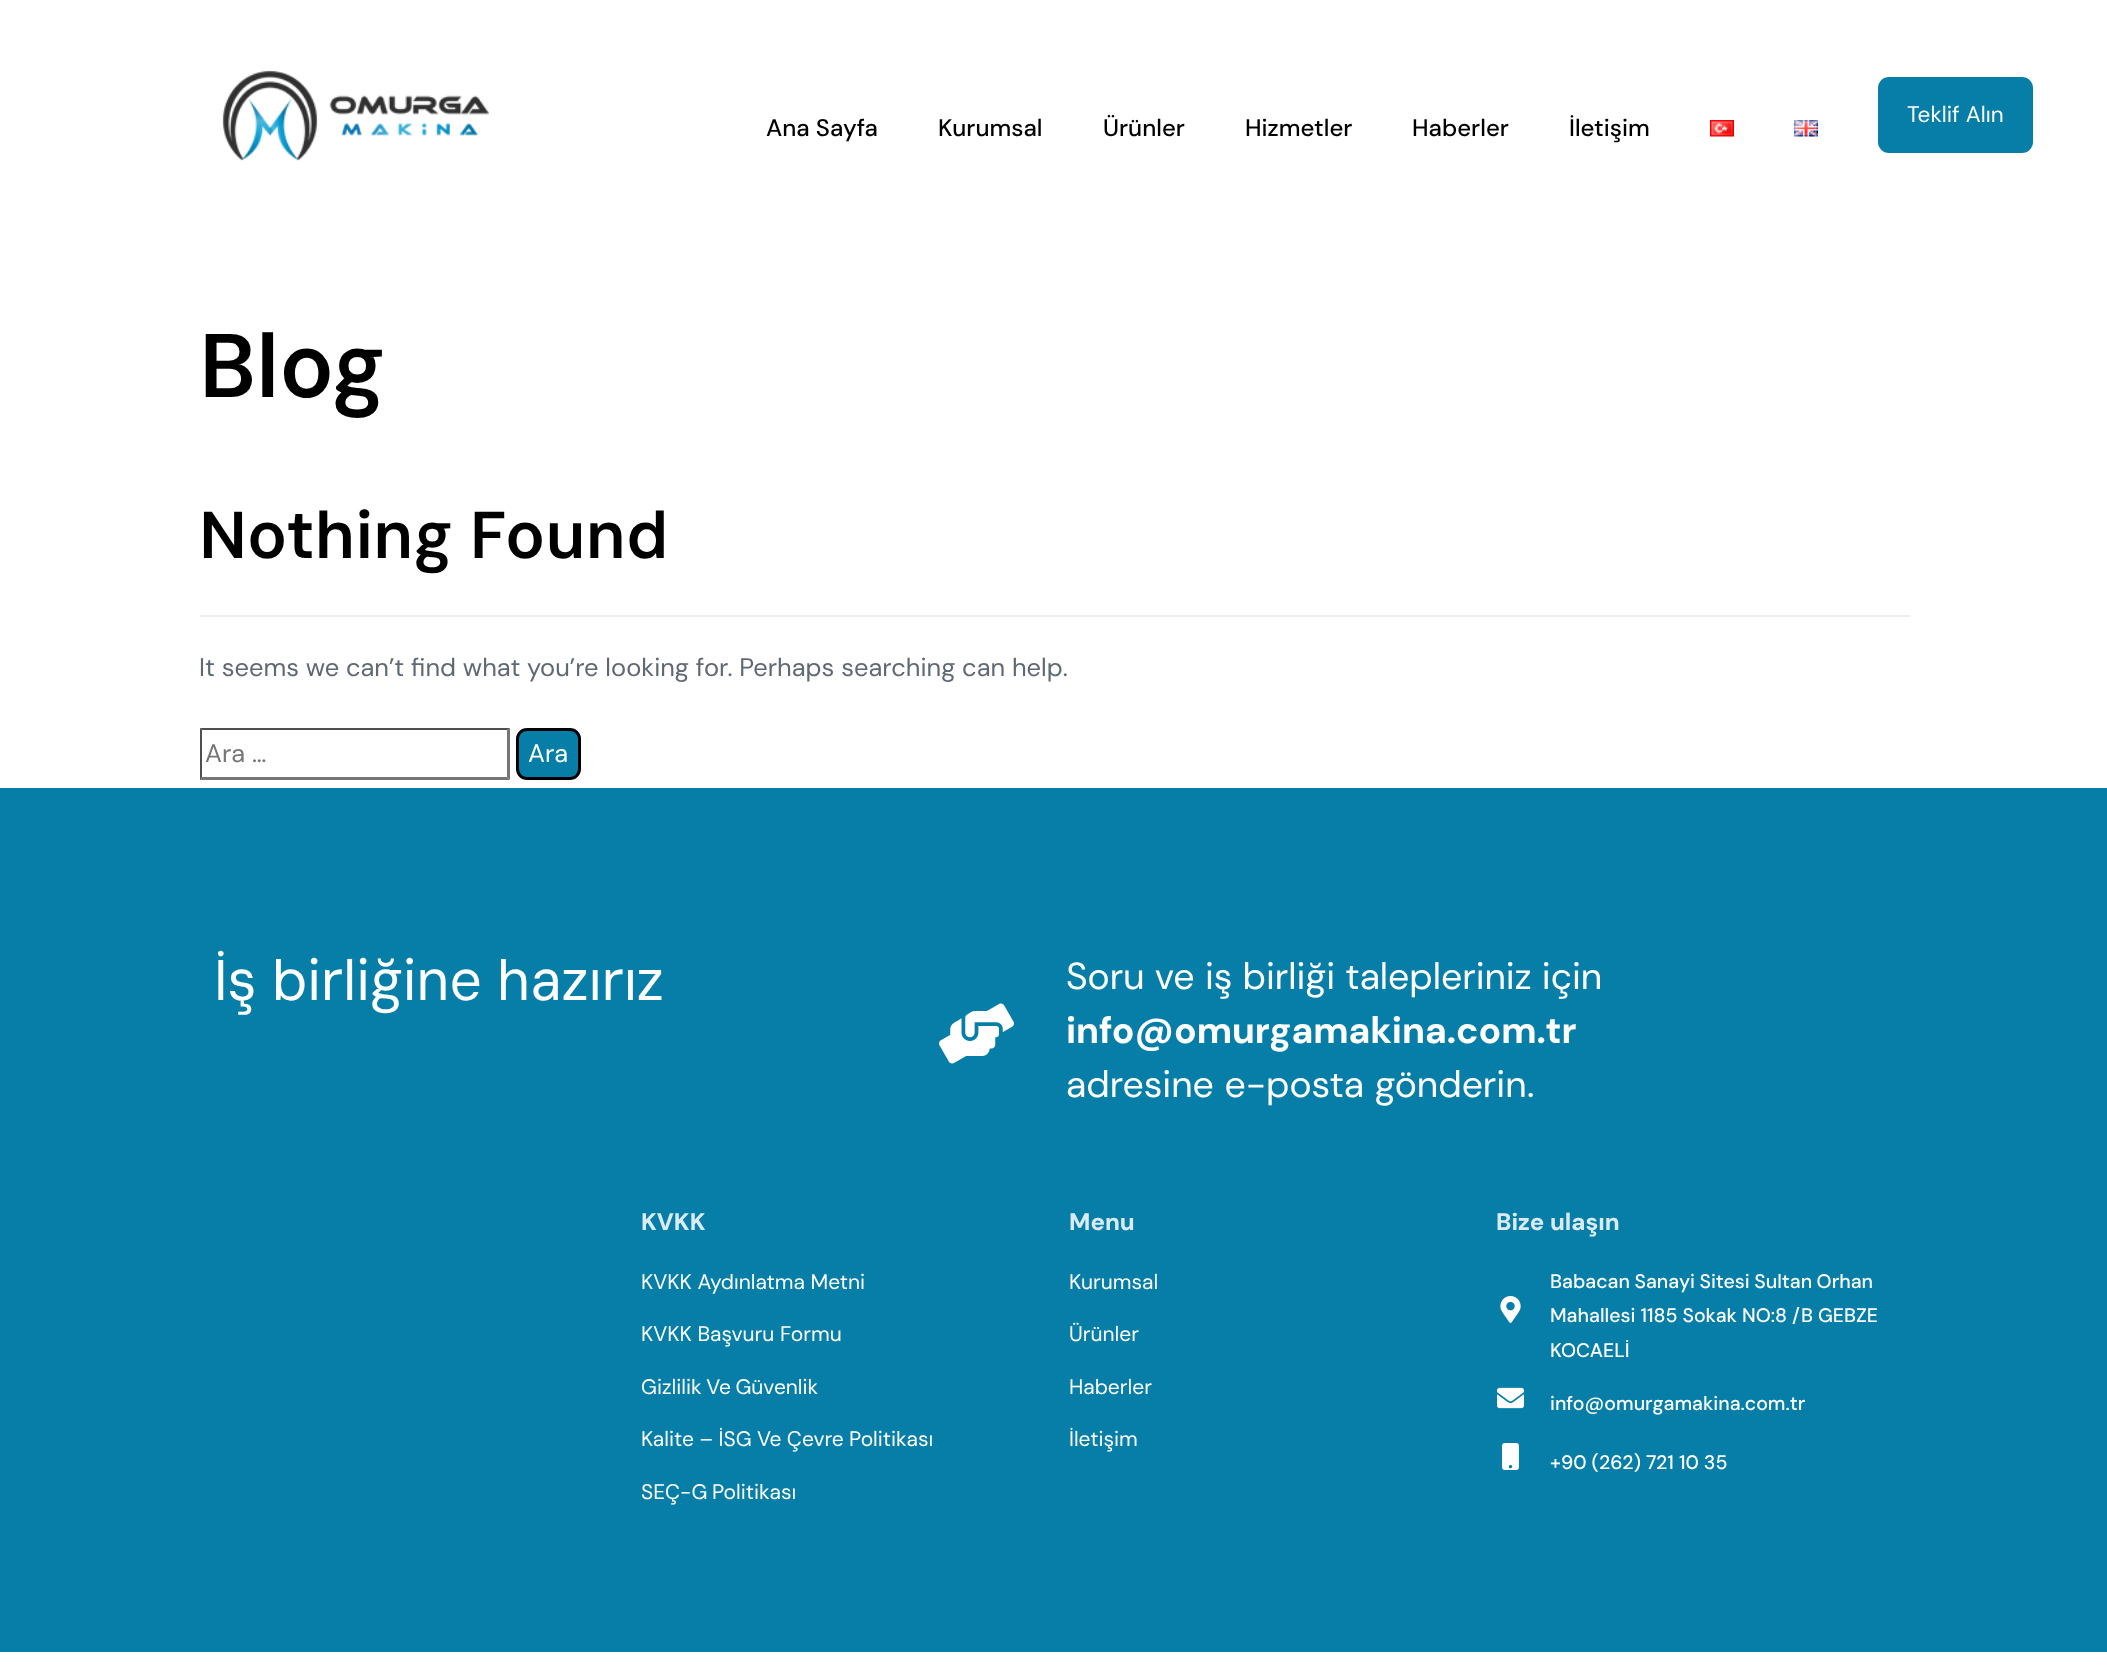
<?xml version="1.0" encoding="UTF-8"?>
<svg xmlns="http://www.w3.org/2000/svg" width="2107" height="1675">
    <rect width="100%" height="100%" fill="#FFFFFF"/>
    <image x="222" y="70" width="268" height="91" href="img_01.png"/>
    <text x="766" y="136" font-family="'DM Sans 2'" font-size="24" font-weight="500" fill="#000000">Ana Sayfa</text>
    <text x="938" y="136" font-family="'DM Sans 2'" font-size="24" font-weight="500" fill="#000000">Kurumsal</text>
    <text x="1103" y="136" font-family="'DM Sans 2'" font-size="24" font-weight="500" fill="#000000">Ürünler</text>
    <text x="1245" y="136" font-family="'DM Sans 2'" font-size="24" font-weight="500" fill="#000000">Hizmetler</text>
    <text x="1412" y="136" font-family="'DM Sans 2'" font-size="24" font-weight="500" fill="#000000">Haberler</text>
    <text x="1569" y="136" font-family="'DM Sans 2'" font-size="24" font-weight="500" fill="#000000">İletişim</text>
    <image x="1710" y="120" width="24" height="17" href="img_02.png"/>
    <image x="1794" y="120" width="24" height="17" href="img_03.png"/>
    <rect x="1878" y="77" width="155" height="76" rx="11" fill="#067EA8"/>
    <text x="1907" y="122" font-family="'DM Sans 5'" font-size="22.5" fill="#FFFFFF">Teklif Alın</text>
    <text x="199" y="397" font-family="DM Sans" font-size="90" font-weight="600" fill="#000000">Blog</text>
    <rect x="200" y="615" width="1710" height="2" fill="#EEEEEE"/>
    <text x="199" y="558" word-spacing="1" font-family="DM Sans" font-size="66" font-weight="600" fill="#000000">Nothing Found</text>
    <text x="199" y="676" font-family="'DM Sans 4'" font-size="25.5" fill="#5F6973">It seems we can’t find what you’re looking for. Perhaps searching can help.</text>
    <path d="M 200 728 H 510 L 507 730 H 202 Z" fill="#4F4F4F"/>
    <path d="M 510 728 V 780 L 507 777 V 730 Z" fill="#767676"/>
    <path d="M 510 780 H 200 L 202 777 H 507 Z" fill="#767676"/>
    <path d="M 200 780 V 728 L 202 730 V 777 Z" fill="#4F4F4F"/>
    <text x="205" y="762" font-family="'DM Sans 4'" font-size="25.5" fill="#757575">Ara …</text>
    <rect x="517.5" y="729.5" width="62" height="49" rx="9.5" fill="#067EA8" stroke="#000000" stroke-width="3"/>
    <text x="528" y="762" font-family="'DM Sans 4'" font-size="25.5" fill="#FFFFFF">Ara</text>
    <rect x="0" y="788" width="2107" height="864" fill="#067EA8"/>
    <text x="214" y="1000" font-family="DM Sans" font-size="57" fill="#FFFFFF">İş birliğine hazırız</text>
    <image x="939" y="1003" width="75" height="61" href="img_04.png"/>
    <text x="1066" y="989" word-spacing="0.5" font-family="'DM Sans 2'" font-size="37.5" fill="#FFFFFF">Soru ve iş birliği talepleriniz için</text>
    <text x="1066" y="1043" font-family="DM Sans" font-size="37.5" font-weight="700" fill="#FFFFFF">info@omurgamakina.com.tr</text>
    <text x="1066" y="1097" word-spacing="1" font-family="'DM Sans 2'" font-size="37.5" fill="#FFFFFF">adresine e-posta gönderin</text>
    <text x="1527" y="1097" font-family="'DM Sans 2'" font-size="37.5" fill="#FFFFFF">.</text>
    <text x="641" y="1230" font-family="DM Sans" font-size="24" font-weight="800" fill="#DAECF2">KVKK</text>
    <text x="641" y="1289" font-family="'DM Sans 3'" font-size="21" fill="#FFFFFF">KVKK Aydınlatma Metni</text>
    <text x="641" y="1341" font-family="'DM Sans 3'" font-size="21" fill="#FFFFFF">KVKK Başvuru Formu</text>
    <text x="641" y="1394" word-spacing="-1" font-family="'DM Sans 3'" font-size="21" fill="#FFFFFF">Gizlilik Ve Güvenlik</text>
    <text x="641" y="1446" word-spacing="-0.25" font-family="'DM Sans 3'" font-size="21" fill="#FFFFFF">Kalite – İSG Ve Çevre Politikası</text>
    <text x="641" y="1499" word-spacing="-1" font-family="'DM Sans 3'" font-size="21" fill="#FFFFFF">SEÇ-G Politikası</text>
    <text x="1069" y="1230" font-family="DM Sans" font-size="24" font-weight="800" fill="#DAECF2">Menu</text>
    <text x="1069" y="1289" font-family="'DM Sans 3'" font-size="21" fill="#FFFFFF">Kurumsal</text>
    <text x="1069" y="1341" font-family="'DM Sans 3'" font-size="21" fill="#FFFFFF">Ürünler</text>
    <text x="1069" y="1394" font-family="'DM Sans 3'" font-size="21" fill="#FFFFFF">Haberler</text>
    <text x="1069" y="1446" font-family="'DM Sans 3'" font-size="21" fill="#FFFFFF">İletişim</text>
    <text x="1496" y="1230" font-family="DM Sans" font-size="24" font-weight="800" fill="#DAECF2">Bize ulaşın</text>
    <image x="1500" y="1296" width="21" height="27" href="img_05.png"/>
    <text font-family="DM Sans" font-size="19.5" font-weight="500" fill="#FFFFFF">
        <tspan x="1550" y="1288" word-spacing="-0.5">Babacan Sanayi Sitesi Sultan Orhan</tspan>
        <tspan x="1550" y="1322">Mahallesi 1185 Sokak NO:8 /B GEBZE</tspan>
        <tspan x="1550" y="1357">KOCAELİ</tspan>
    </text>
    <image x="1497" y="1387" width="27" height="22" href="img_06.png"/>
    <text x="1550" y="1410" font-family="DM Sans" font-size="19.5" font-weight="500" fill="#FFFFFF">info@omurgamakina.com.tr</text>
    <image x="1502" y="1443" width="17" height="27" href="img_07.png"/>
    <text x="1550" y="1469" font-family="DM Sans" font-size="19.5" font-weight="500" fill="#FFFFFF">+90 (262) 721 10 35</text>
</svg>
